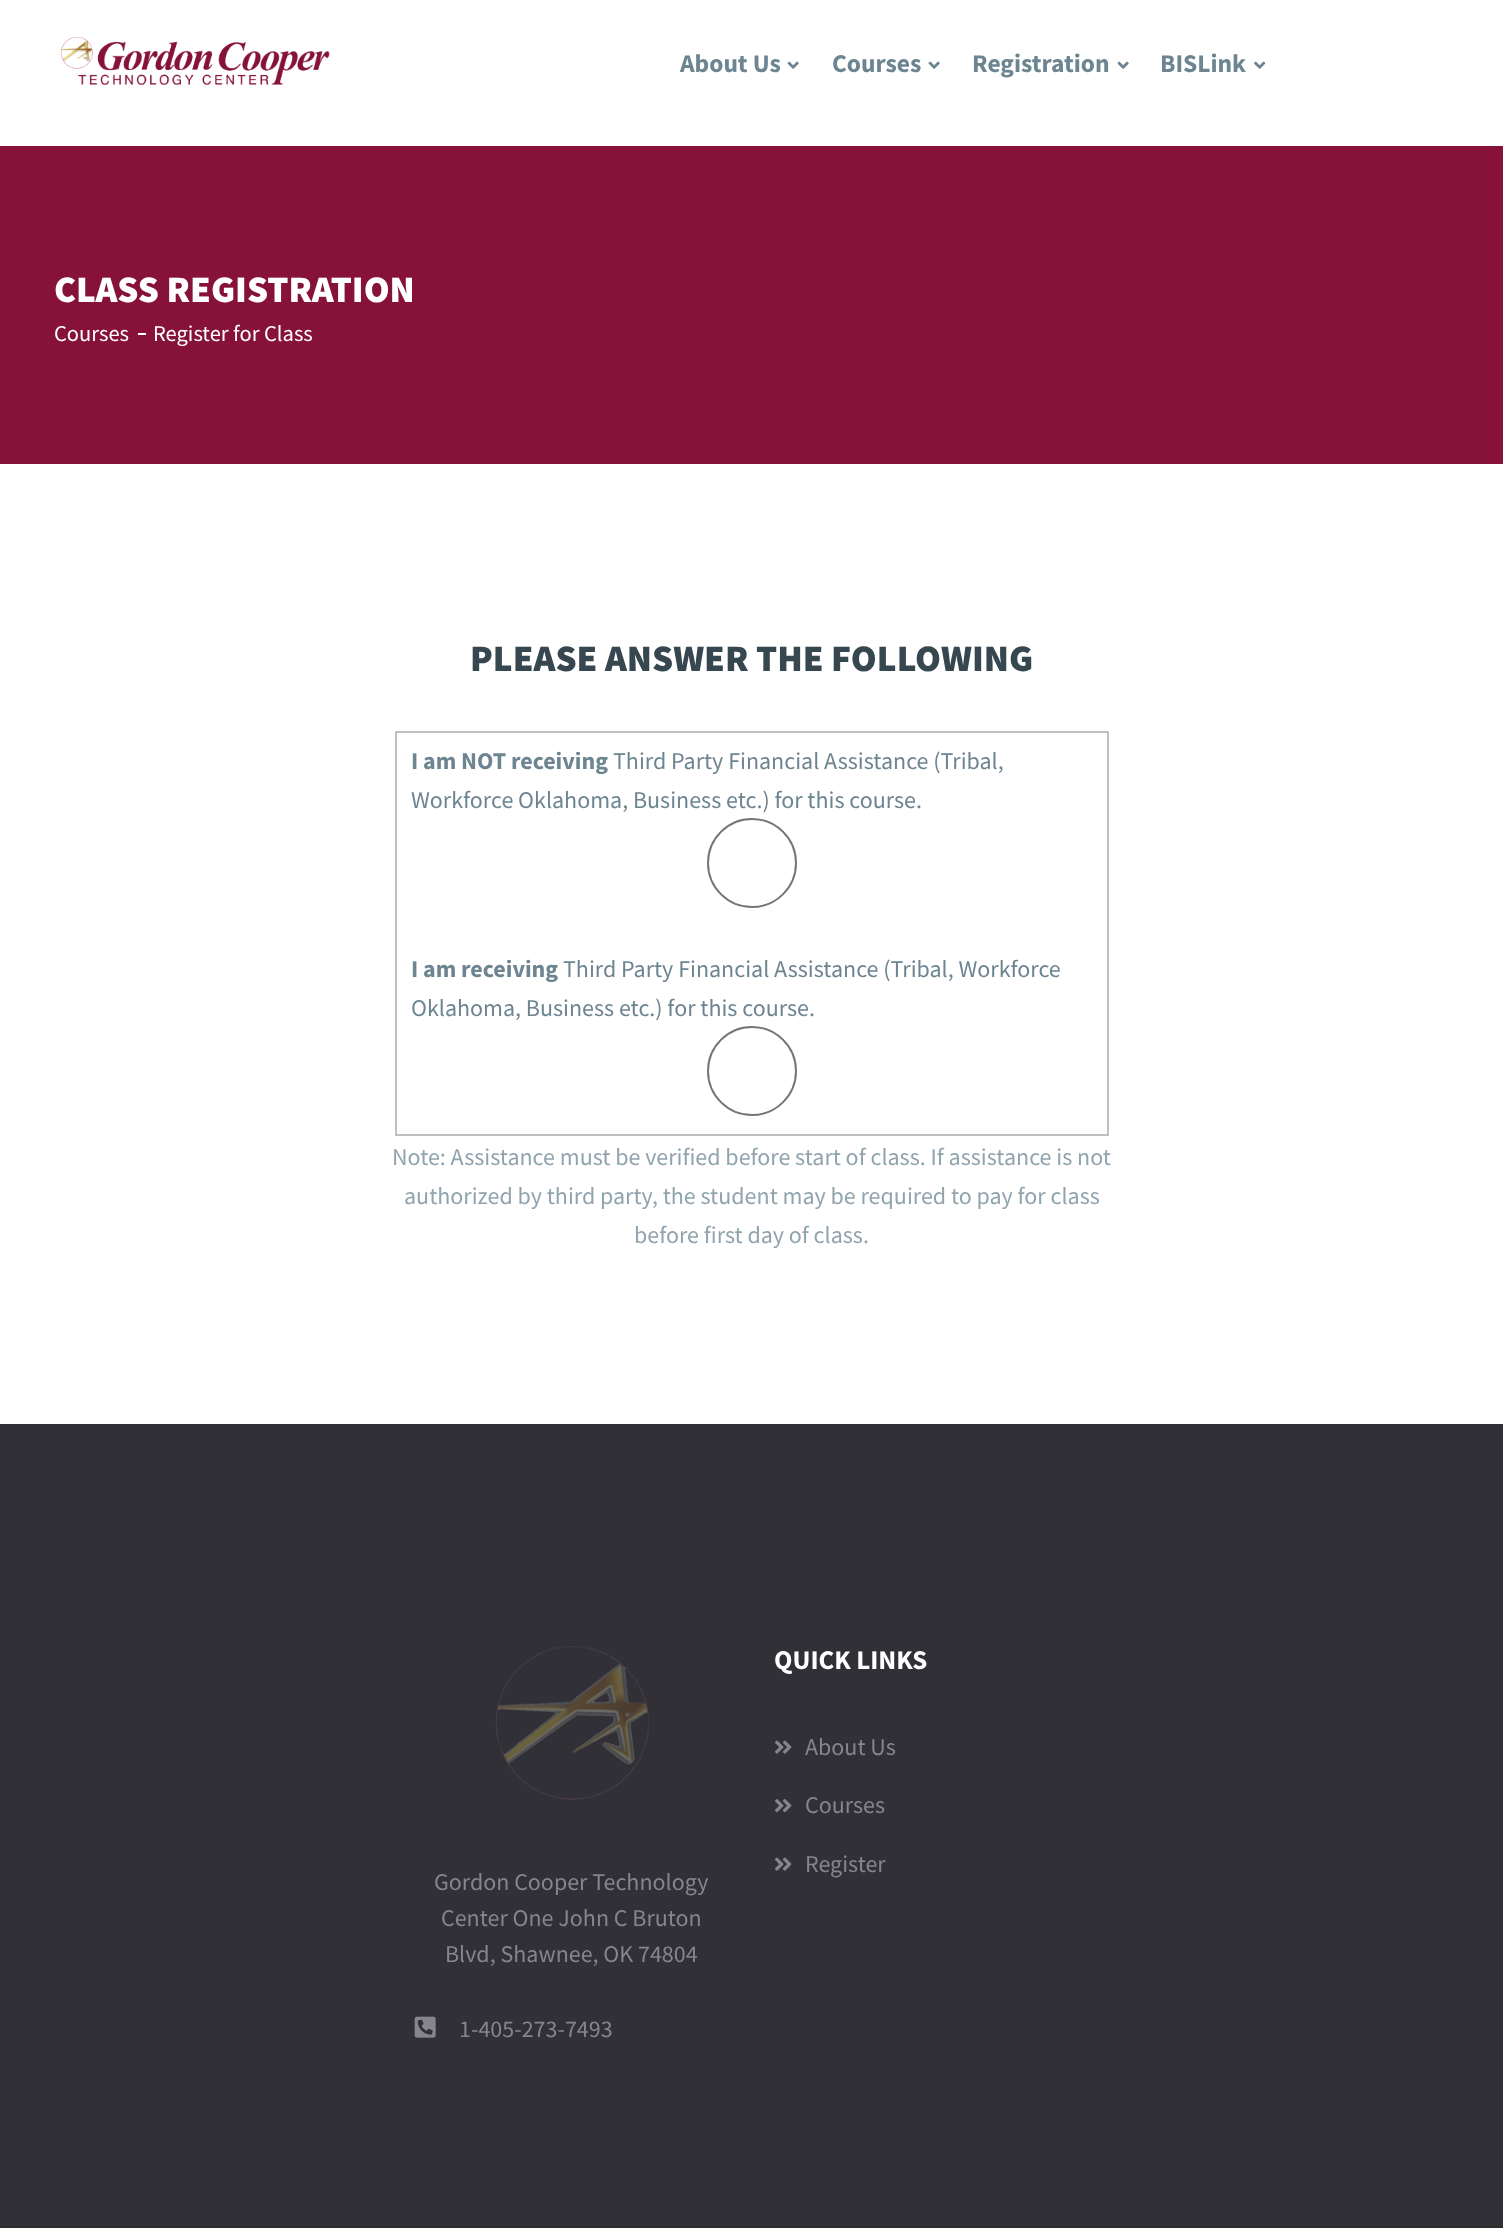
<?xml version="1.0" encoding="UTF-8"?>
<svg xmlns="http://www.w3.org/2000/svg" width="1503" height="2228">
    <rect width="100%" height="100%" fill="#FFFFFF"/>
    <image x="60" y="37" width="270" height="49" href="img_01.png"/>
    <text x="680" y="72" font-family="Source Sans Pro" font-size="25.5" font-weight="700" fill="#6D8591">About Us</text>
    <image x="787" y="61" width="12" height="8" href="img_02.png"/>
    <text x="832" y="72" font-family="Source Sans Pro" font-size="25.5" font-weight="700" fill="#6D8591">Courses</text>
    <image x="928" y="61" width="12" height="8" href="img_02.png"/>
    <text x="972" y="72" font-family="Source Sans Pro" font-size="25.5" font-weight="700" fill="#6D8591">Registration</text>
    <image x="1117" y="61" width="12" height="8" href="img_02.png"/>
    <text x="1160" y="72" font-family="Source Sans Pro" font-size="25.5" font-weight="700" fill="#6D8591">BISLink</text>
    <image x="1254" y="61" width="12" height="8" href="img_03.png"/>
    <rect x="0" y="146" width="1503" height="318" fill="#871239"/>
    <text x="54" y="302" font-family="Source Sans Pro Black" font-size="37.5" font-weight="900" fill="#FFFFFF">CLASS REGISTRATION</text>
    <text x="54" y="341" font-family="Source Sans Pro" font-size="22.5" fill="#FFFFFF">Courses</text>
    <rect x="138" y="333" width="8" height="2" fill="#FFFFFF"/>
    <text x="153" y="341" font-family="Source Sans Pro" font-size="22.5" fill="#FFFFFF">Register for Class</text>
    <text x="470" y="671" font-family="Source Sans Pro Black" font-size="37.5" font-weight="900" fill="#37474F">PLEASE ANSWER THE FOLLOWING</text>
    <rect x="396" y="732" width="712" height="403" fill="none" stroke="#C0C0C0" stroke-width="2"/>
    <text x="411" y="769" font-family="Source Sans Pro" font-size="24" font-weight="700" fill="#6D8591">I am NOT receiving</text>
    <text x="613" y="769" font-family="Source Sans Pro" font-size="24" fill="#6D8591">Third Party Financial Assistance (Tribal,</text>
    <text x="411" y="808" font-family="Source Sans Pro" font-size="24" fill="#6D8591">Workforce Oklahoma, Business etc.) for this course.</text>
    <circle cx="752" cy="863" r="44" fill="none" stroke="#767676" stroke-width="2"/>
    <text x="411" y="977" font-family="Source Sans Pro" font-size="24" font-weight="700" fill="#6D8591">I am receiving</text>
    <text x="563" y="977" font-family="Source Sans Pro" font-size="24" fill="#6D8591">Third Party Financial Assistance (Tribal, Workforce</text>
    <text x="411" y="1016" font-family="Source Sans Pro" font-size="24" fill="#6D8591">Oklahoma, Business etc.) for this course.</text>
    <circle cx="752" cy="1071" r="44" fill="none" stroke="#767676" stroke-width="2"/>
    <text x="392" y="1165" font-family="Source Sans Pro" font-size="24" fill="#90A4AE">Note: Assistance must be verified before start of class. If assistance is not</text>
    <text x="404" y="1204" font-family="Source Sans Pro" font-size="24" fill="#90A4AE">authorized by third party, the student may be required to pay for class</text>
    <text x="634" y="1243" font-family="Source Sans Pro" font-size="24" fill="#90A4AE">before first day of class.</text>
    <rect x="0" y="1424" width="1503" height="802" fill="#303036"/>
    <text x="774" y="1669" font-family="Source Sans Pro" font-size="27" font-weight="700" fill="#FFFFFF">QUICK LINKS</text>
    <image x="775" y="1740" width="17" height="14" href="img_04.png"/>
    <text x="805" y="1755" font-family="Source Sans Pro" font-size="24" fill="#85858C">About Us</text>
    <image x="775" y="1799" width="17" height="14" href="img_05.png"/>
    <text x="805" y="1813" font-family="Source Sans Pro" font-size="24" fill="#85858C">Courses</text>
    <image x="775" y="1857" width="17" height="14" href="img_04.png"/>
    <text x="805" y="1872" font-family="Source Sans Pro" font-size="24" fill="#85858C">Register</text>
    <image x="495" y="1646" width="155" height="154" href="img_06.png"/>
    <text x="434" y="1890" font-family="Source Sans Pro" font-size="24" fill="#85858C">Gordon Cooper Technology</text>
    <text x="441" y="1926" font-family="Source Sans Pro" font-size="24" fill="#85858C">Center One John C Bruton</text>
    <text x="445" y="1962" font-family="Source Sans Pro" font-size="24" fill="#85858C">Blvd, Shawnee, OK 74804</text>
    <image x="414" y="2016" width="22" height="22" href="img_07.png"/>
    <text x="459" y="2037" font-family="Source Sans Pro" font-size="24" fill="#85858C">1-405-273-7493</text>
    <rect x="0" y="2226" width="1503" height="2" fill="#2D2D2E"/>
</svg>
